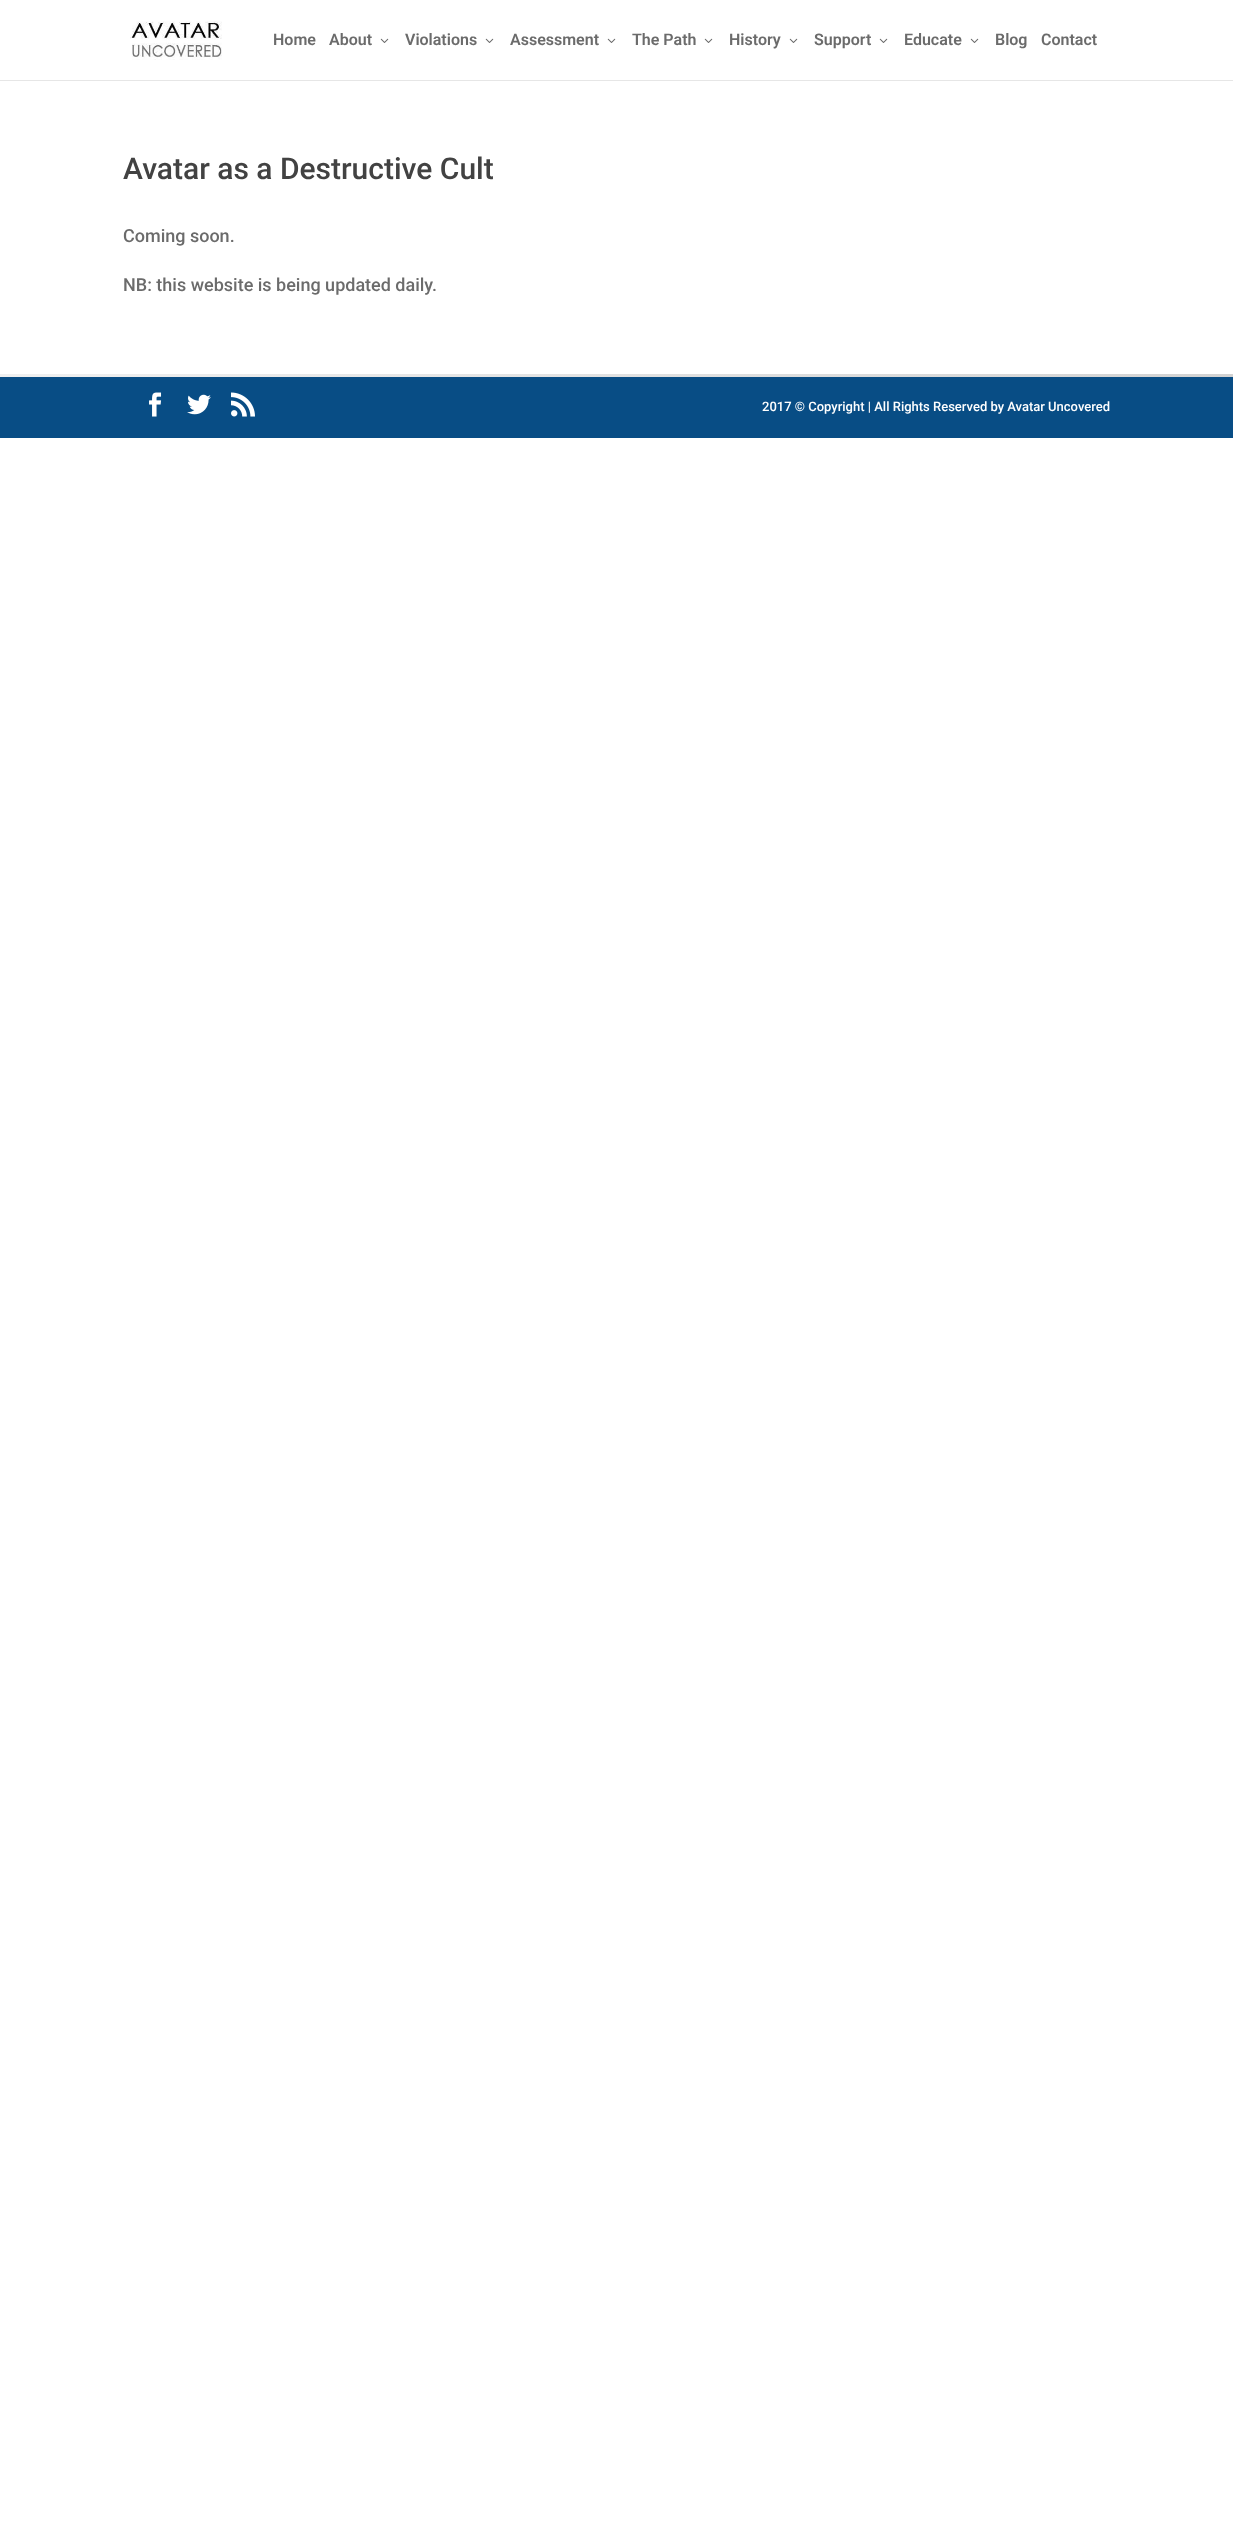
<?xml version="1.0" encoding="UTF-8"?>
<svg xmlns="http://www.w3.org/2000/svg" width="1233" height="2533">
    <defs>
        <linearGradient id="g1" gradientUnits="userSpaceOnUse" x1="286" y1="67" x2="947" y2="684"><stop offset="0" stop-color="#F0F0F0"/><stop offset="1" stop-color="#D2D2D2"/></linearGradient>
    </defs>
    <rect width="100%" height="100%" fill="#FFFFFF"/>
    <rect x="0" y="80" width="1233" height="1" fill="#E6E6E6"/>
    <image x="130" y="21" width="92" height="39" href="img_01.png"/>
    <text x="273" y="45" font-family="Roboto" font-size="16" font-weight="600" fill="#6B6B6B">Home</text>
    <text x="329" y="45" font-family="Roboto" font-size="16" font-weight="600" fill="#6B6B6B">About</text>
    <image x="380" y="38" width="9" height="5" href="img_02.png"/>
    <text x="405" y="45" font-family="Roboto" font-size="16" font-weight="600" fill="#6B6B6B">Violations</text>
    <image x="485" y="38" width="9" height="5" href="img_02.png"/>
    <text x="510" y="45" font-family="Roboto" font-size="16" font-weight="600" fill="#6B6B6B">Assessment</text>
    <image x="607" y="38" width="9" height="5" href="img_02.png"/>
    <text x="632" y="45" font-family="Roboto" font-size="16" font-weight="600" fill="#6B6B6B">The Path</text>
    <image x="704" y="38" width="9" height="5" href="img_02.png"/>
    <text x="729" y="45" font-family="Roboto" font-size="16" font-weight="600" fill="#6B6B6B">History</text>
    <image x="789" y="38" width="9" height="5" href="img_02.png"/>
    <text x="814" y="45" font-family="Roboto" font-size="16" font-weight="600" fill="#6B6B6B">Support</text>
    <image x="879" y="38" width="9" height="5" href="img_02.png"/>
    <text x="904" y="45" font-family="Roboto" font-size="16" font-weight="600" fill="#6B6B6B">Educate</text>
    <image x="970" y="38" width="9" height="5" href="img_02.png"/>
    <text x="995" y="45" font-family="Roboto" font-size="16" font-weight="600" fill="#6B6B6B">Blog</text>
    <text x="1041" y="45" font-family="Roboto" font-size="16" font-weight="600" fill="#6B6B6B">Contact</text>
    <text x="123" y="179" font-family="Roboto" font-size="30" font-weight="500" fill="#424242">Avatar as a Destructive Cult</text>
    <text x="123" y="242" font-family="Roboto" font-size="18" font-weight="500" fill="#6B6B6B">Coming soon.</text>
    <text x="123" y="291" font-family="Roboto" font-size="18" font-weight="500" fill="#6B6B6B">NB: this website is being updated daily.</text>
    <rect x="0" y="374" width="1233" height="3" fill="url(#g1)"/>
    <rect x="0" y="377" width="1233" height="61" fill="#084D85"/>
    <image x="149" y="392" width="13" height="25" href="img_03.png"/>
    <image x="187" y="394" width="24" height="21" href="img_04.png"/>
    <image x="231" y="392" width="24" height="25" href="img_05.png"/>
    <text x="762" y="411" font-family="Roboto" font-size="13" font-weight="500" fill="#FFFFFF">2017 © Copyright | All Rights Reserved by Avatar Uncovered</text>
</svg>
